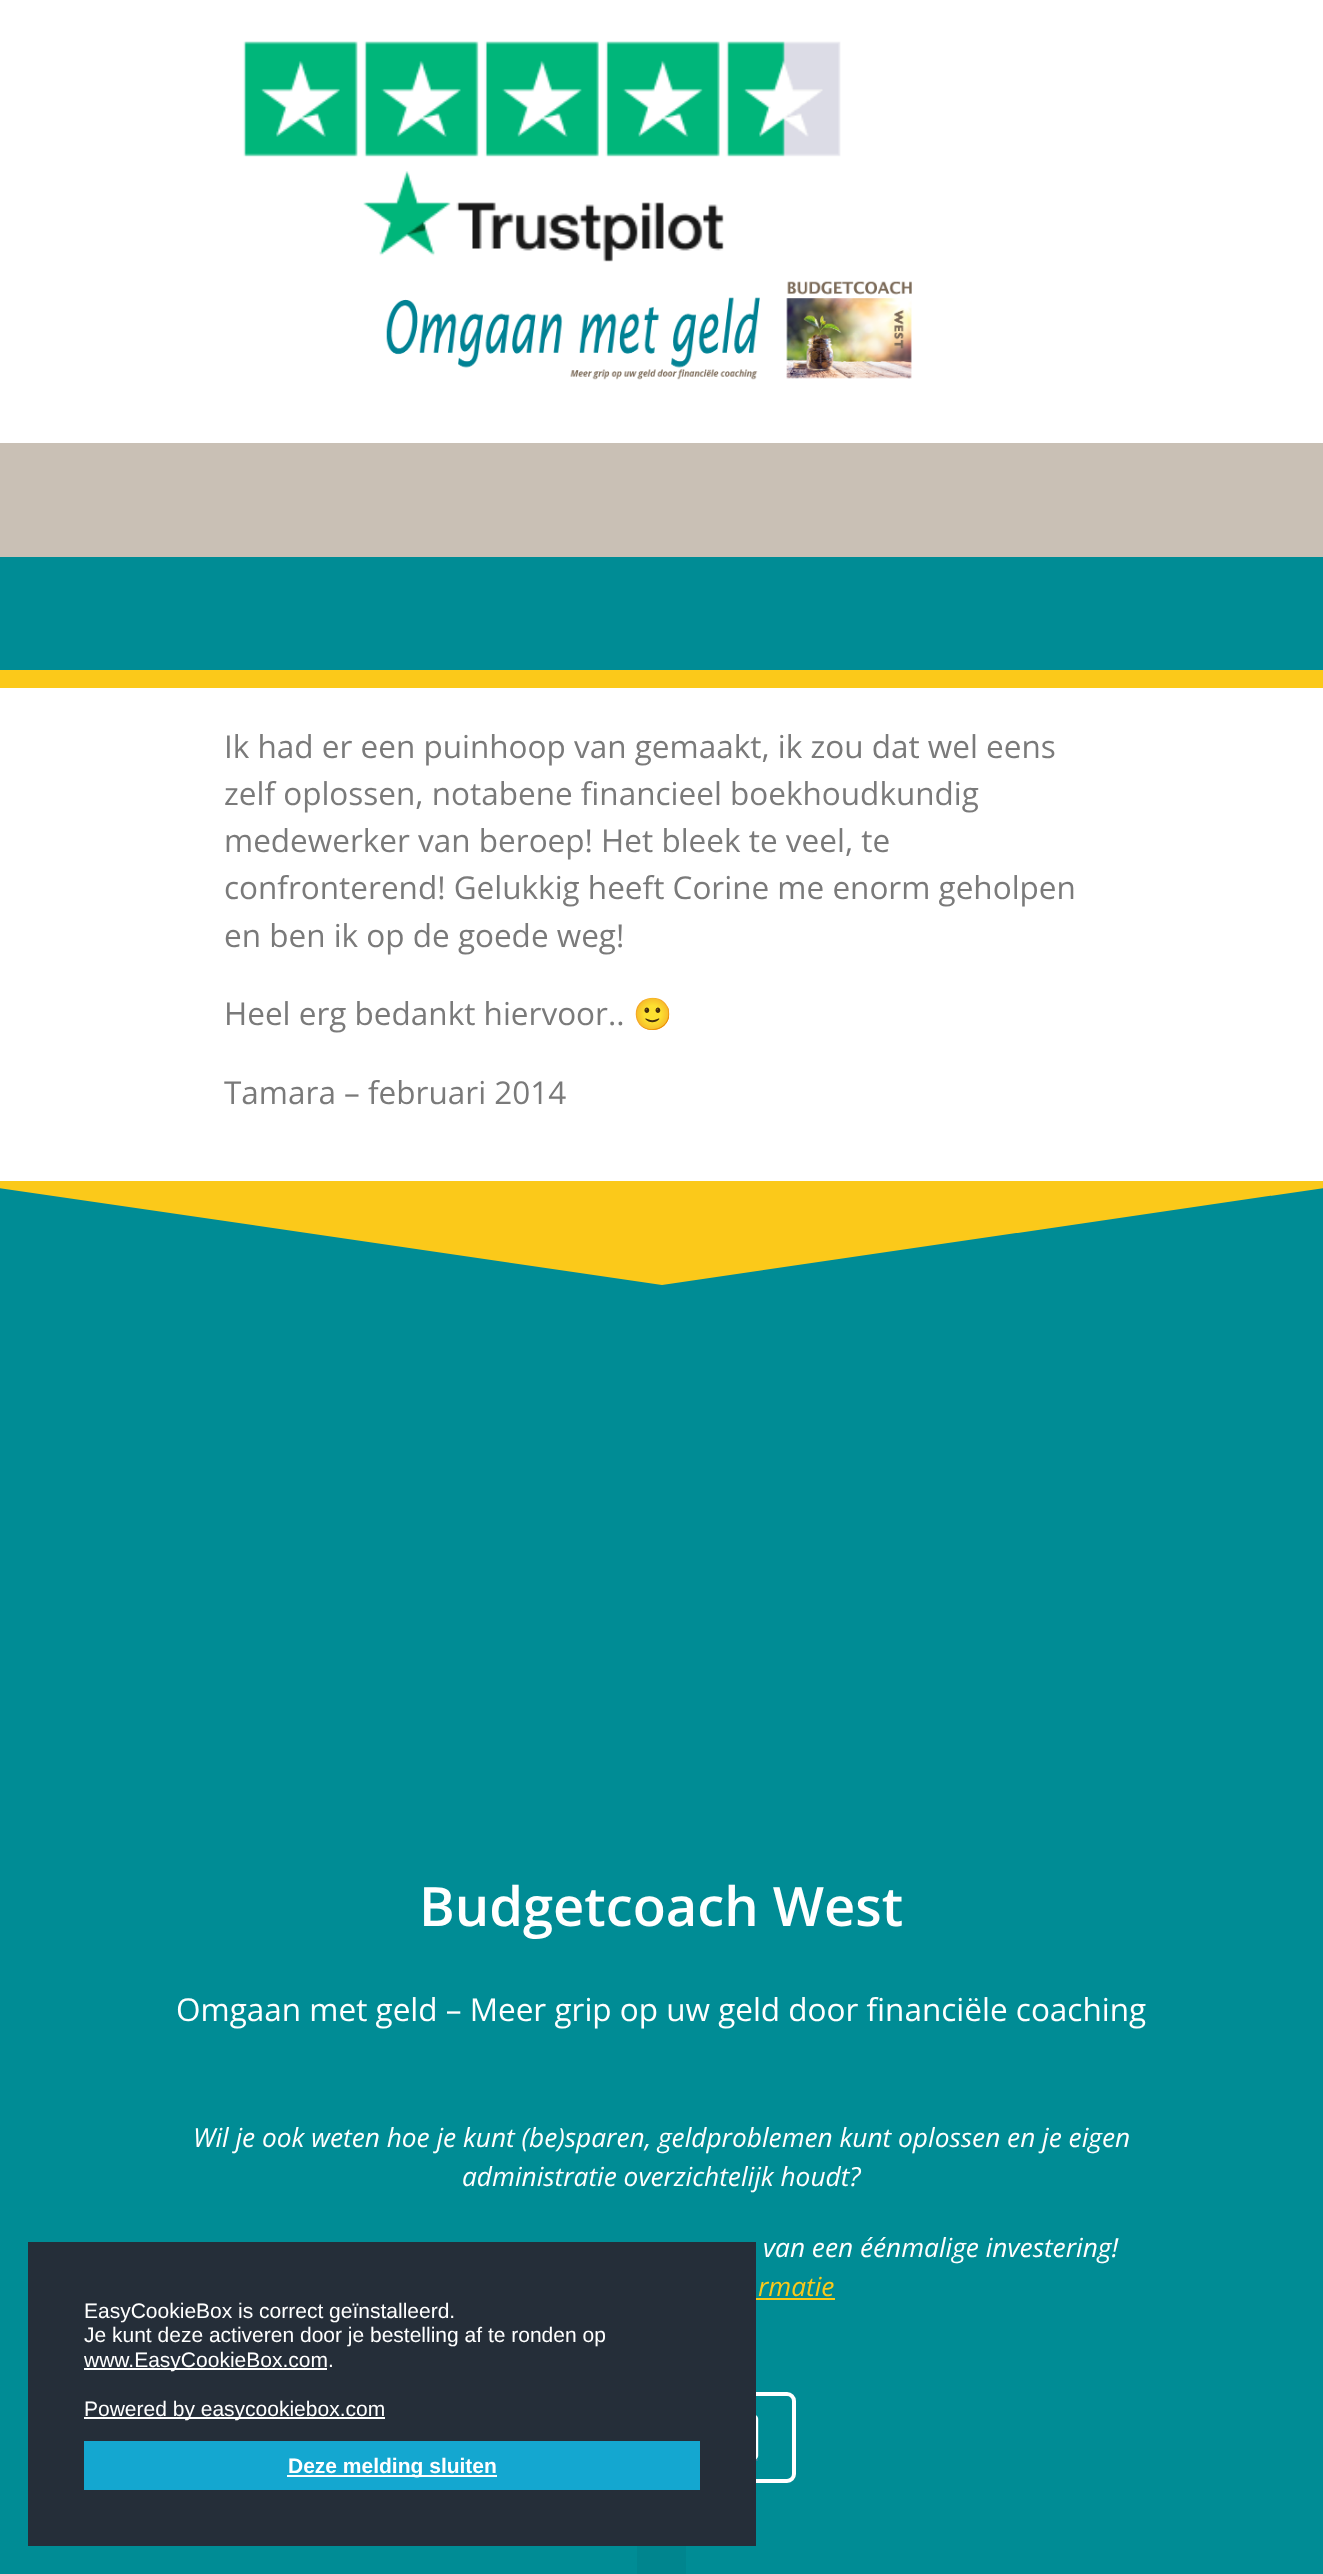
<?xml version="1.0" encoding="UTF-8"?>
<svg xmlns="http://www.w3.org/2000/svg" width="1323" height="2574">
    <rect width="100%" height="100%" fill="#FFFFFF"/>
    <image x="243" y="41" width="598" height="221" href="img_01.png"/>
    <image x="386" y="281" width="526" height="99" href="img_02.png"/>
    <rect x="0" y="443" width="1323" height="114" fill="#C9C0B5"/>
    <rect x="0" y="557" width="1323" height="113" fill="#008C95"/>
    <rect x="0" y="670" width="1323" height="18" fill="#FBC91A"/>
    <text font-family="Open Sans" font-size="31.5" fill="#7A7A7A">
        <tspan x="224" y="758">Ik had er een puinhoop van gemaakt, ik zou dat wel eens</tspan>
        <tspan x="224" y="805">zelf oplossen, notabene financieel boekhoudkundig</tspan>
        <tspan x="224" y="852">medewerker van beroep! Het bleek te veel, te</tspan>
        <tspan x="224" y="899">confronterend! Gelukkig heeft Corine me enorm geholpen</tspan>
        <tspan x="224" y="947">en ben ik op de goede weg!</tspan>
    </text>
    <text x="224" y="1025" font-family="Open Sans" font-size="31.5" fill="#7A7A7A">Heel erg bedankt hiervoor..</text>
    <text x="633" y="1025" font-family="Noto Color Emoji" font-size="31.5" fill="#7A7A7A">🙂</text>
    <text x="224" y="1104" font-family="Open Sans" font-size="31.5" fill="#7A7A7A">Tamara – februari 2014</text>
    <rect x="0" y="1188" width="1323" height="1386" fill="#008C95"/>
    <path d="M 662 1285 L -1 1188 V 1181 H 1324 V 1188 Z" fill="#FBC91A"/>
    <text x="419" y="1926" font-family="Open Sans" font-size="54.25" font-weight="600" fill="#FFFFFF">Budgetcoach West</text>
    <text x="176" y="2021" font-family="Open Sans" font-size="31.5" fill="#FFFFFF">Omgaan met geld – Meer grip op uw geld door financiële coaching</text>
    <text x="193" y="2147" font-family="Open Sans" font-size="26.25" font-style="italic" fill="#FFFFFF">Wil je ook weten hoe je kunt (be)sparen, geldproblemen kunt oplossen en je eigen</text>
    <text x="462" y="2186" font-family="Open Sans" font-size="26.25" font-style="italic" fill="#FFFFFF">administratie overzichtelijk houdt?</text>
    <text x="763" y="2257" font-family="Open Sans" font-size="26.25" font-style="italic" fill="#FFFFFF">van een éénmalige investering!</text>
    <text x="758" y="2296" font-family="Open Sans" font-size="26.25" font-style="italic" fill="#FBC91A">rmatie</text>
    <rect x="756" y="2298" width="79" height="2" fill="#FBC91A"/>
    <rect x="686" y="2394" width="108" height="87" rx="7" fill="none" stroke="#FFFFFF" stroke-width="4"/>
    <rect x="756" y="2459" width="2" height="2" fill="#31859B"/>
    <image x="756" y="2415" width="3" height="45" href="img_03.png"/>
    <rect x="637" y="2546" width="49" height="28" fill="#00858E"/>
    <rect x="28" y="2242" width="728" height="304" fill="#252E39"/>
    <text font-family="Liberation Sans" font-size="21" fill="#FFFFFF">
        <tspan x="84" y="2318">EasyCookieBox is correct geïnstalleerd.</tspan>
        <tspan x="84" y="2342">Je kunt deze activeren door je bestelling af te ronden op</tspan>
    </text>
    <rect x="84" y="2368" width="243" height="2" fill="#FFFFFF"/>
    <text x="84" y="2367" font-family="Liberation Sans" font-size="21" fill="#FFFFFF">www.EasyCookieBox.com.</text>
    <rect x="84" y="2417" width="301" height="2" fill="#FFFFFF"/>
    <text x="84" y="2416" font-family="Liberation Sans" font-size="21" fill="#FFFFFF">Powered by easycookiebox.com</text>
    <rect x="84" y="2441" width="616" height="49" fill="#14A7D0"/>
    <rect x="287" y="2475" width="210" height="2" fill="#FFFFFF"/>
    <text x="288" y="2473" font-family="Liberation Sans" font-size="21" font-weight="700" fill="#FFFFFF">Deze melding sluiten</text>
</svg>
